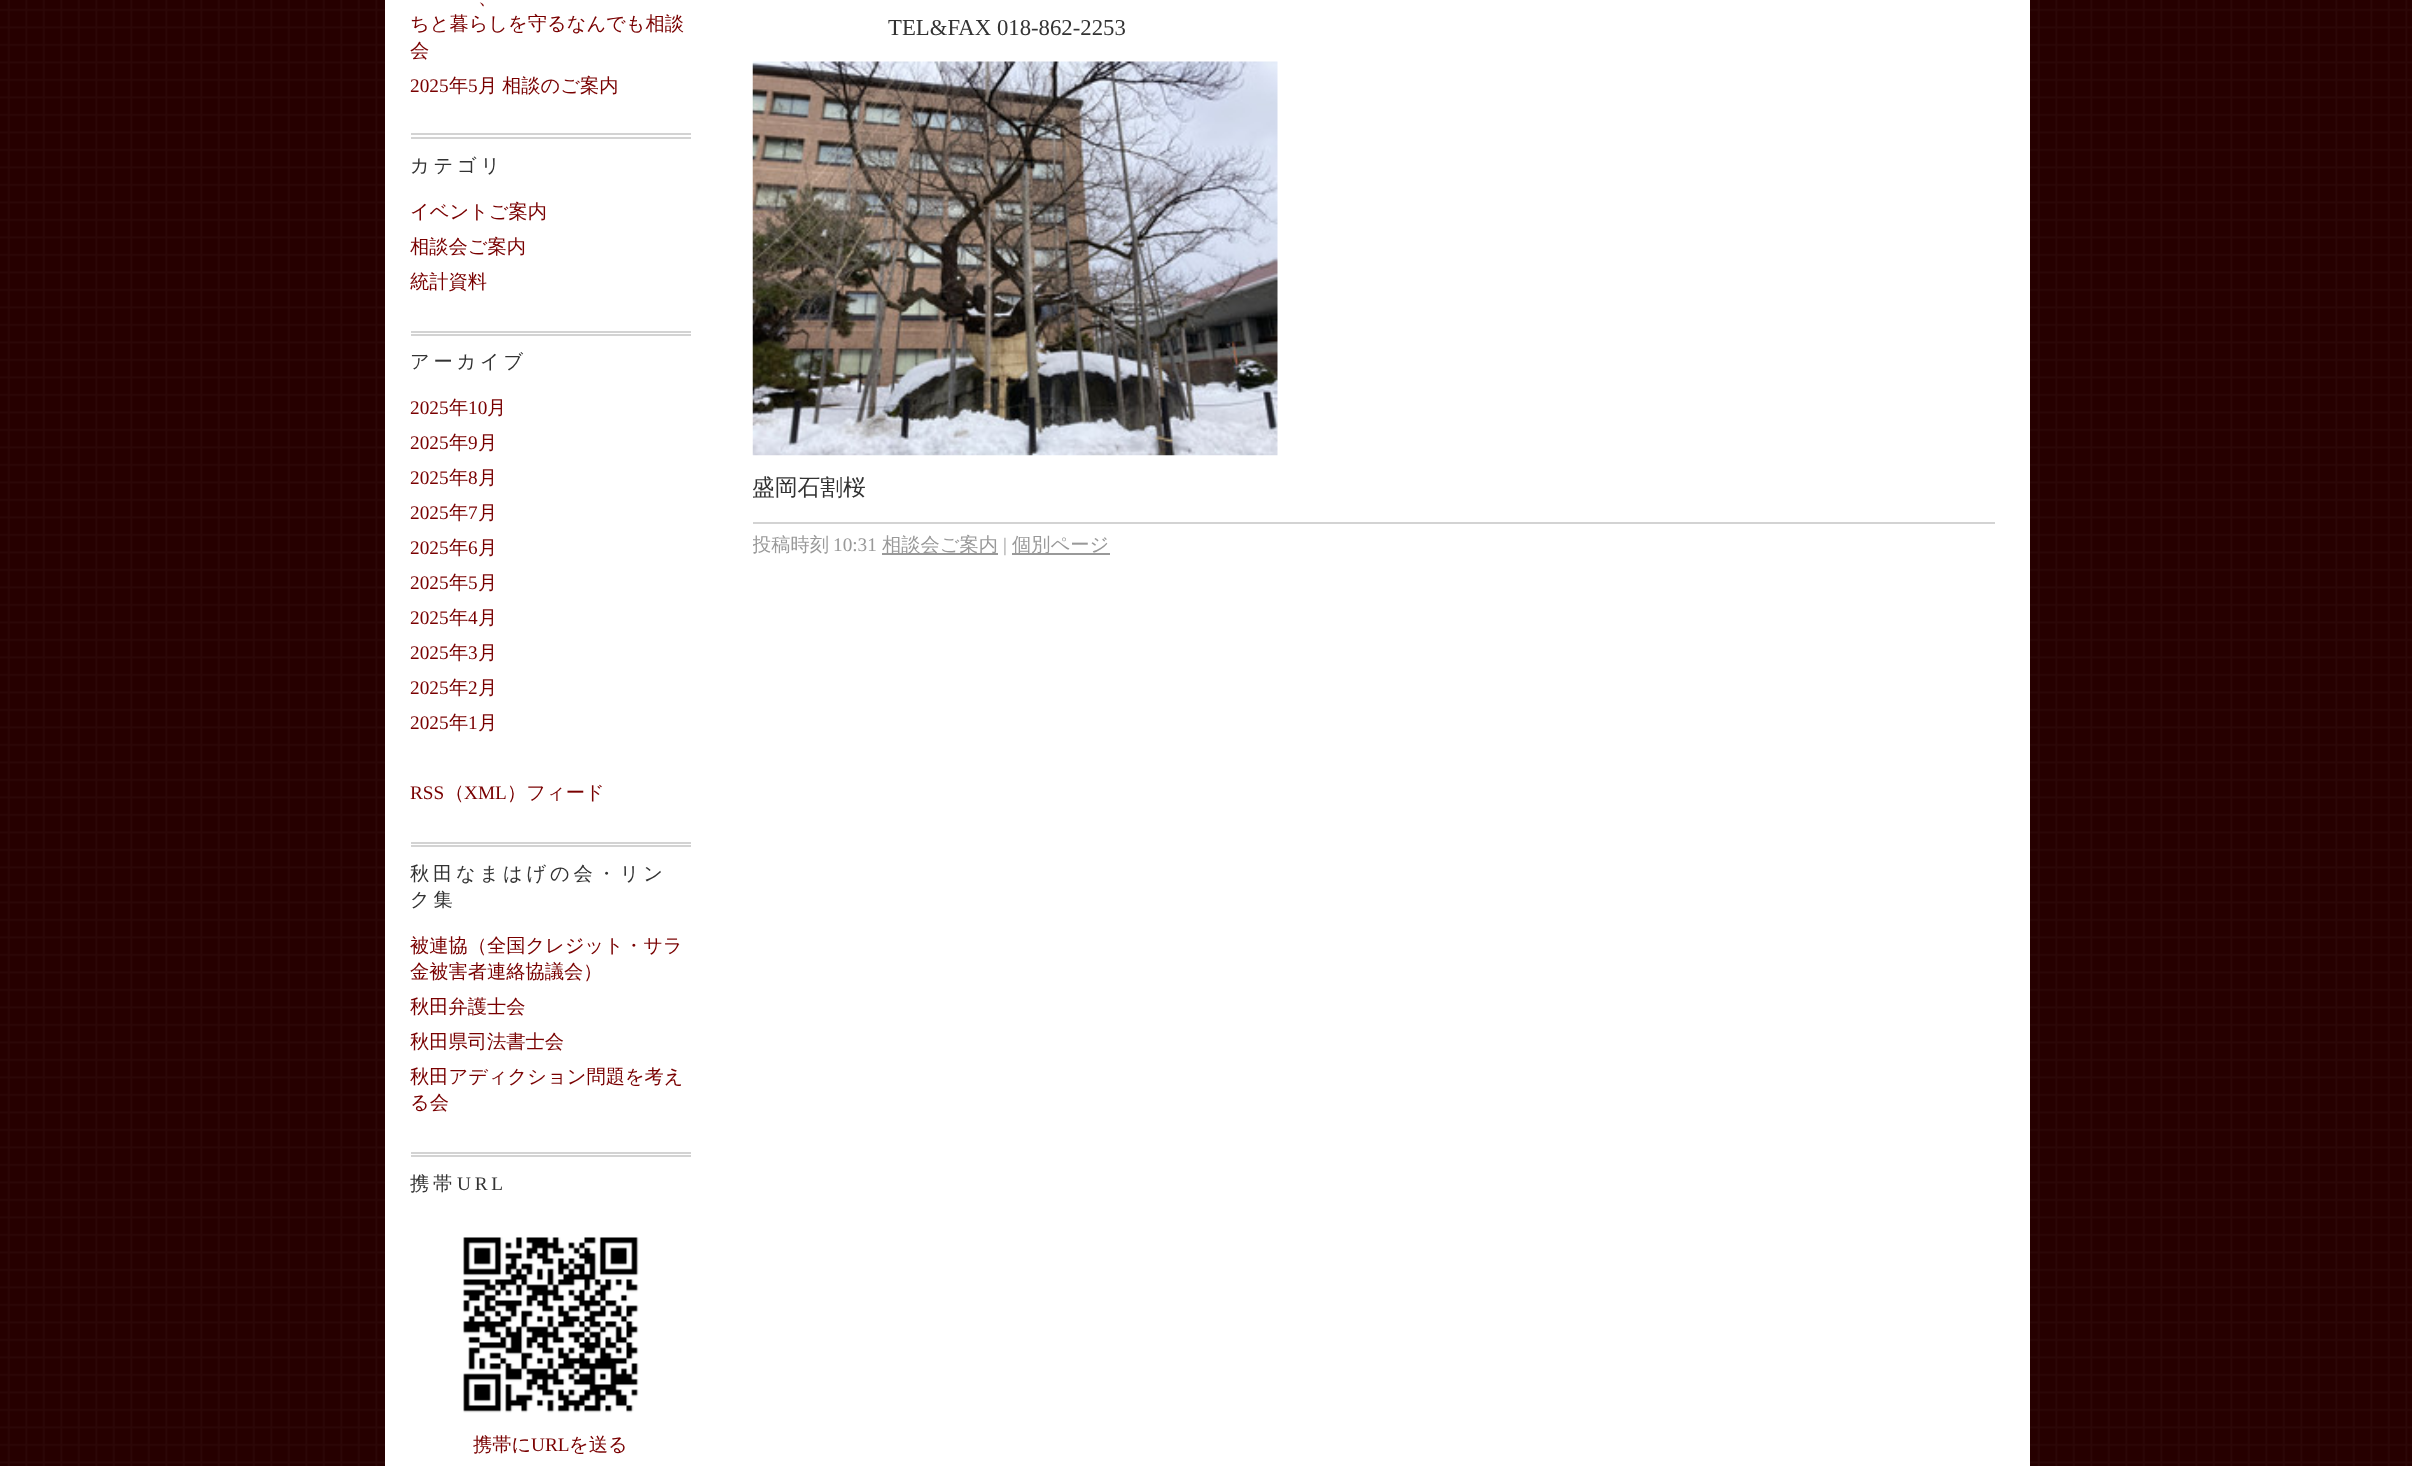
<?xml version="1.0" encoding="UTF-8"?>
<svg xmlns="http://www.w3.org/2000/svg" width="2412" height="1466">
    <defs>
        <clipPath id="clip1"><rect x="753" y="0" width="1242" height="593"/></clipPath>
    </defs>
    <rect width="100%" height="100%" fill="#FFFFFF"/>
    <image x="0" y="0" width="2412" height="1466" href="img_01.png"/>
    <rect x="385" y="0" width="1645" height="1466" fill="#FFFFFF"/>
    <text x="478" y="4" font-family="WenQuanYi Zen Hei" font-size="19.25" font-weight="500" fill="#790000">、</text>
    <text font-family="WenQuanYi Zen Hei" font-size="19.25" font-weight="500" fill="#790000">
        <tspan x="410" y="30">ちと暮らしを守るなんでも相談</tspan>
        <tspan x="410" y="57">会</tspan>
    </text>
    <text x="410" y="92" font-family="Liberation Serif" font-size="19.25" fill="#790000">2025</text>
    <text x="449" y="92" font-family="WenQuanYi Zen Hei" font-size="19.25" font-weight="500" fill="#790000">年</text>
    <text x="468" y="92" font-family="Liberation Serif" font-size="19.25" fill="#790000">5</text>
    <text x="478" y="92" word-spacing="-1" font-family="WenQuanYi Zen Hei" font-size="19.25" font-weight="500" fill="#790000">月 相談のご案内</text>
    <rect x="411" y="133" width="280" height="2" fill="#D3D3D3"/>
    <rect x="411" y="137" width="280" height="2" fill="#D3D3D3"/>
    <text x="410" y="172" font-family="WenQuanYi Zen Hei" font-size="19.25" font-weight="500" letter-spacing="3.8" fill="#333333">カテゴリ</text>
    <text font-family="WenQuanYi Zen Hei" font-size="19.25" font-weight="500" fill="#790000">
        <tspan x="410" y="218">イベントご案内</tspan>
        <tspan x="410" y="253">相談会ご案内</tspan>
        <tspan x="410" y="288">統計資料</tspan>
    </text>
    <rect x="411" y="331" width="280" height="2" fill="#D3D3D3"/>
    <rect x="411" y="334" width="280" height="2" fill="#D3D3D3"/>
    <text x="410" y="368" font-family="WenQuanYi Zen Hei" font-size="19.25" font-weight="500" letter-spacing="3.8" fill="#333333">アーカイブ</text>
    <text x="410" y="414" font-family="Liberation Serif" font-size="19.25" fill="#790000">2025</text>
    <text x="449" y="414" font-family="WenQuanYi Zen Hei" font-size="19.25" font-weight="500" fill="#790000">年</text>
    <text x="468" y="414" font-family="Liberation Serif" font-size="19.25" fill="#790000">10</text>
    <text x="487" y="414" font-family="WenQuanYi Zen Hei" font-size="19.25" font-weight="500" fill="#790000">月</text>
    <text x="410" y="449" font-family="Liberation Serif" font-size="19.25" fill="#790000">2025</text>
    <text x="449" y="449" font-family="WenQuanYi Zen Hei" font-size="19.25" font-weight="500" fill="#790000">年</text>
    <text x="468" y="449" font-family="Liberation Serif" font-size="19.25" fill="#790000">9</text>
    <text x="478" y="449" font-family="WenQuanYi Zen Hei" font-size="19.25" font-weight="500" fill="#790000">月</text>
    <text x="410" y="484" font-family="Liberation Serif" font-size="19.25" fill="#790000">2025</text>
    <text x="449" y="484" font-family="WenQuanYi Zen Hei" font-size="19.25" font-weight="500" fill="#790000">年</text>
    <text x="468" y="484" font-family="Liberation Serif" font-size="19.25" fill="#790000">8</text>
    <text x="478" y="484" font-family="WenQuanYi Zen Hei" font-size="19.25" font-weight="500" fill="#790000">月</text>
    <text x="410" y="519" font-family="Liberation Serif" font-size="19.25" fill="#790000">2025</text>
    <text x="449" y="519" font-family="WenQuanYi Zen Hei" font-size="19.25" font-weight="500" fill="#790000">年</text>
    <text x="468" y="519" font-family="Liberation Serif" font-size="19.25" fill="#790000">7</text>
    <text x="478" y="519" font-family="WenQuanYi Zen Hei" font-size="19.25" font-weight="500" fill="#790000">月</text>
    <text x="410" y="554" font-family="Liberation Serif" font-size="19.25" fill="#790000">2025</text>
    <text x="449" y="554" font-family="WenQuanYi Zen Hei" font-size="19.25" font-weight="500" fill="#790000">年</text>
    <text x="468" y="554" font-family="Liberation Serif" font-size="19.25" fill="#790000">6</text>
    <text x="478" y="554" font-family="WenQuanYi Zen Hei" font-size="19.25" font-weight="500" fill="#790000">月</text>
    <text x="410" y="589" font-family="Liberation Serif" font-size="19.25" fill="#790000">2025</text>
    <text x="449" y="589" font-family="WenQuanYi Zen Hei" font-size="19.25" font-weight="500" fill="#790000">年</text>
    <text x="468" y="589" font-family="Liberation Serif" font-size="19.25" fill="#790000">5</text>
    <text x="478" y="589" font-family="WenQuanYi Zen Hei" font-size="19.25" font-weight="500" fill="#790000">月</text>
    <text x="410" y="624" font-family="Liberation Serif" font-size="19.25" fill="#790000">2025</text>
    <text x="449" y="624" font-family="WenQuanYi Zen Hei" font-size="19.25" font-weight="500" fill="#790000">年</text>
    <text x="468" y="624" font-family="Liberation Serif" font-size="19.25" fill="#790000">4</text>
    <text x="478" y="624" font-family="WenQuanYi Zen Hei" font-size="19.25" font-weight="500" fill="#790000">月</text>
    <text x="410" y="659" font-family="Liberation Serif" font-size="19.25" fill="#790000">2025</text>
    <text x="449" y="659" font-family="WenQuanYi Zen Hei" font-size="19.25" font-weight="500" fill="#790000">年</text>
    <text x="468" y="659" font-family="Liberation Serif" font-size="19.25" fill="#790000">3</text>
    <text x="478" y="659" font-family="WenQuanYi Zen Hei" font-size="19.25" font-weight="500" fill="#790000">月</text>
    <text x="410" y="694" font-family="Liberation Serif" font-size="19.25" fill="#790000">2025</text>
    <text x="449" y="694" font-family="WenQuanYi Zen Hei" font-size="19.25" font-weight="500" fill="#790000">年</text>
    <text x="468" y="694" font-family="Liberation Serif" font-size="19.25" fill="#790000">2</text>
    <text x="478" y="694" font-family="WenQuanYi Zen Hei" font-size="19.25" font-weight="500" fill="#790000">月</text>
    <text x="410" y="729" font-family="Liberation Serif" font-size="19.25" fill="#790000">2025</text>
    <text x="449" y="729" font-family="WenQuanYi Zen Hei" font-size="19.25" font-weight="500" fill="#790000">年</text>
    <text x="468" y="729" font-family="Liberation Serif" font-size="19.25" fill="#790000">1</text>
    <text x="478" y="729" font-family="WenQuanYi Zen Hei" font-size="19.25" font-weight="500" fill="#790000">月</text>
    <text x="410" y="799" font-family="Liberation Serif" font-size="19.25" fill="#790000">RSS</text>
    <text x="445" y="799" font-family="WenQuanYi Zen Hei" font-size="19.25" font-weight="500" fill="#790000">（</text>
    <text x="464" y="799" font-family="Liberation Serif" font-size="19.25" fill="#790000">XML</text>
    <text x="507" y="799" font-family="WenQuanYi Zen Hei" font-size="19.25" font-weight="500" fill="#790000">）フィード</text>
    <rect x="411" y="842" width="280" height="2" fill="#D3D3D3"/>
    <rect x="411" y="845" width="280" height="2" fill="#D3D3D3"/>
    <text font-family="WenQuanYi Zen Hei" font-size="19.25" font-weight="500" letter-spacing="3.8" fill="#333333">
        <tspan x="410" y="880">秋田なまはげの会・リン</tspan>
        <tspan x="410" y="906">ク集</tspan>
    </text>
    <text font-family="WenQuanYi Zen Hei" font-size="19.25" font-weight="500" fill="#790000">
        <tspan x="410" y="952">被連協（全国クレジット・サラ</tspan>
        <tspan x="410" y="978">金被害者連絡協議会）</tspan>
        <tspan x="410" y="1013">秋田弁護士会</tspan>
        <tspan x="410" y="1048">秋田県司法書士会</tspan>
        <tspan x="410" y="1083">秋田アディクション問題を考え</tspan>
        <tspan x="410" y="1109">る会</tspan>
    </text>
    <rect x="411" y="1152" width="280" height="2" fill="#D3D3D3"/>
    <rect x="411" y="1155" width="280" height="2" fill="#D3D3D3"/>
    <text x="410" y="1190" font-family="WenQuanYi Zen Hei" font-size="19.25" font-weight="500" letter-spacing="3.8" fill="#333333">携帯</text>
    <text x="457" y="1190" font-family="Liberation Serif" font-size="19.25" letter-spacing="3.8" fill="#333333">URL</text>
    <image x="463" y="1237" width="176" height="176" href="img_02.png"/>
    <text x="473" y="1451" font-family="WenQuanYi Zen Hei" font-size="19.25" font-weight="500" fill="#790000">携帯に</text>
    <text x="531" y="1451" font-family="Liberation Serif" font-size="19.25" fill="#790000">URL</text>
    <text x="569" y="1451" font-family="WenQuanYi Zen Hei" font-size="19.25" font-weight="500" fill="#790000">を送る</text>
    <text x="888" y="35" font-family="Liberation Serif" font-size="22.75" fill="#333333">TEL&amp;FAX 018-862-2253</text>
    <image x="752" y="61" width="526" height="395" href="img_03.png"/>
    <g clip-path="url(#clip1)">
        <text x="752" y="495" font-family="WenQuanYi Zen Hei" font-size="22.75" font-weight="500" fill="#333333">盛岡石割桜</text>
    </g>
    <rect x="753" y="522" width="1242" height="2" fill="#D3D3D3"/>
    <g clip-path="url(#clip1)">
        <text x="752" y="551" font-family="WenQuanYi Zen Hei" font-size="19.25" font-weight="500" fill="#999999">投稿時刻</text>
    </g>
    <text x="833" y="551" font-family="Liberation Serif" font-size="19.25" fill="#999999">10:31</text>
    <rect x="882" y="553" width="116" height="2" fill="#999999"/>
    <text x="882" y="551" font-family="WenQuanYi Zen Hei" font-size="19.25" font-weight="500" fill="#999999">相談会ご案内</text>
    <text x="1003" y="551" font-family="Liberation Serif" font-size="19.25" fill="#999999">|</text>
    <rect x="1012" y="553" width="98" height="2" fill="#999999"/>
    <text x="1012" y="551" font-family="WenQuanYi Zen Hei" font-size="19.25" font-weight="500" fill="#999999">個別ページ</text>
</svg>
